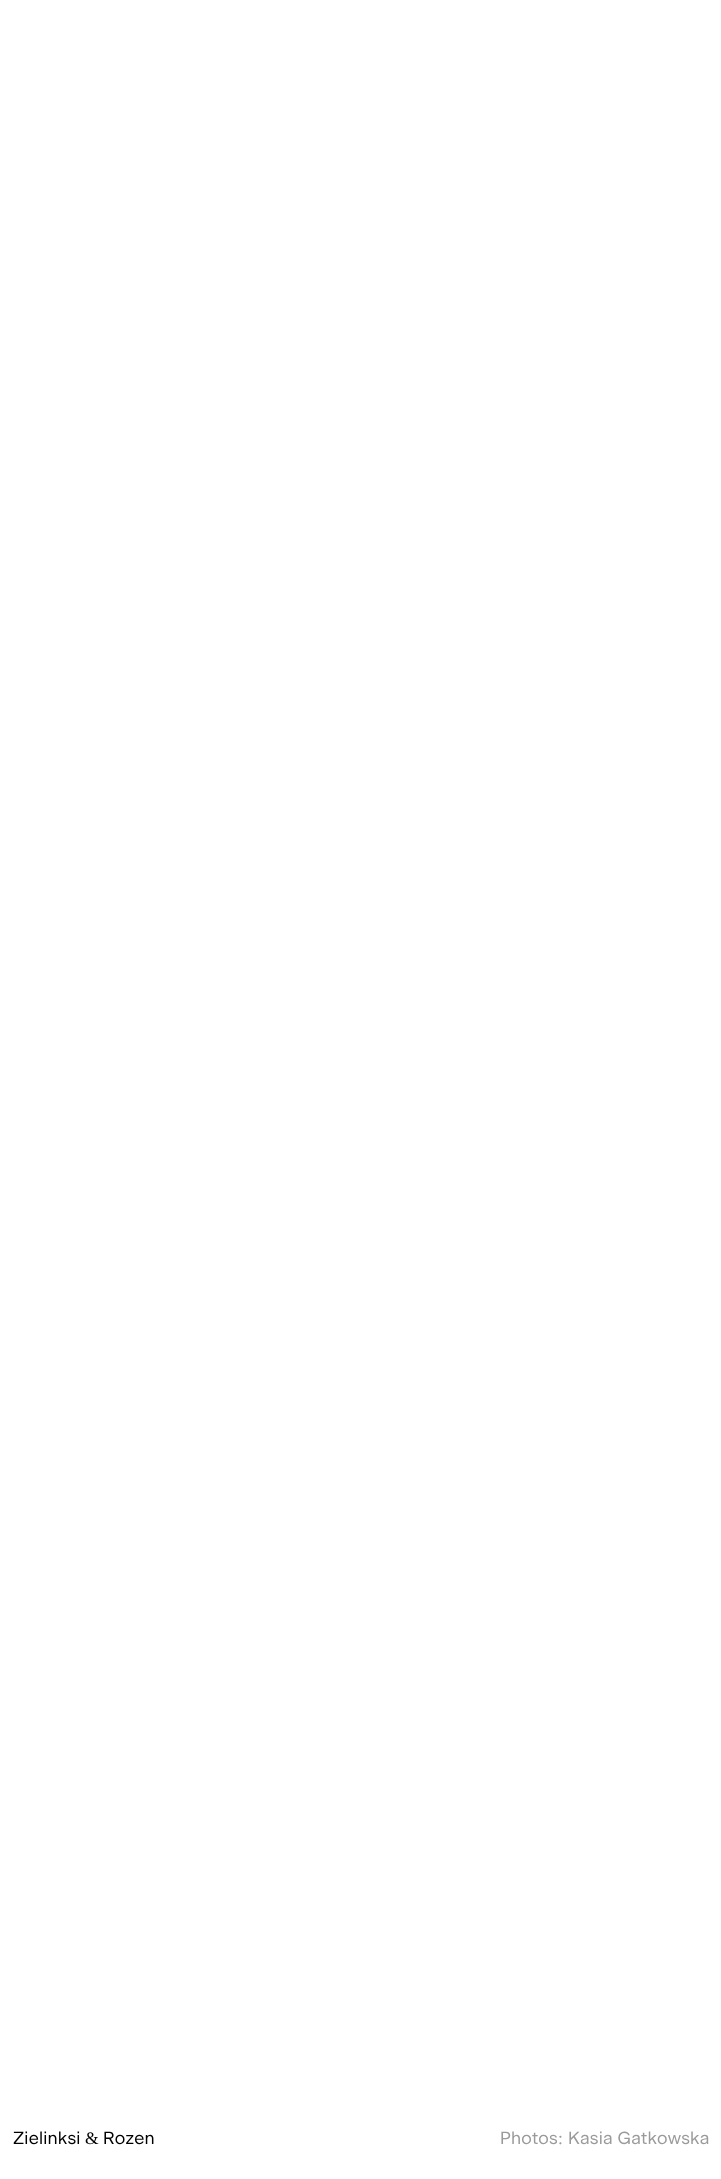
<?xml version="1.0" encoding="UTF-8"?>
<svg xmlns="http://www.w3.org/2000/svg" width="721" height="2179">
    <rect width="100%" height="100%" fill="#FFFFFF"/>
    <text x="13" y="2144" font-family="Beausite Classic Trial" font-size="17.5" font-weight="300" letter-spacing="0.2" fill="#000000">Zielinksi</text>
    <text x="85" y="2144" font-family="Liberation Serif" font-size="17.5" letter-spacing="0.2" fill="#000000">&amp;</text>
    <text x="103" y="2144" font-family="Beausite Classic Trial" font-size="17.5" font-weight="300" letter-spacing="0.2" fill="#000000">Rozen</text>
    <text x="500" y="2144" font-family="Beausite Classic Trial" font-size="17.5" font-weight="300" letter-spacing="0.2" fill="#9A9A9A">Photos</text>
    <text x="558" y="2144" font-family="Liberation Serif" font-size="17.5" letter-spacing="0.2" fill="#9A9A9A">:</text>
    <text x="568" y="2144" font-family="Beausite Classic Trial" font-size="17.5" font-weight="300" letter-spacing="0.2" fill="#9A9A9A">Kasia Gatkowska</text>
</svg>
